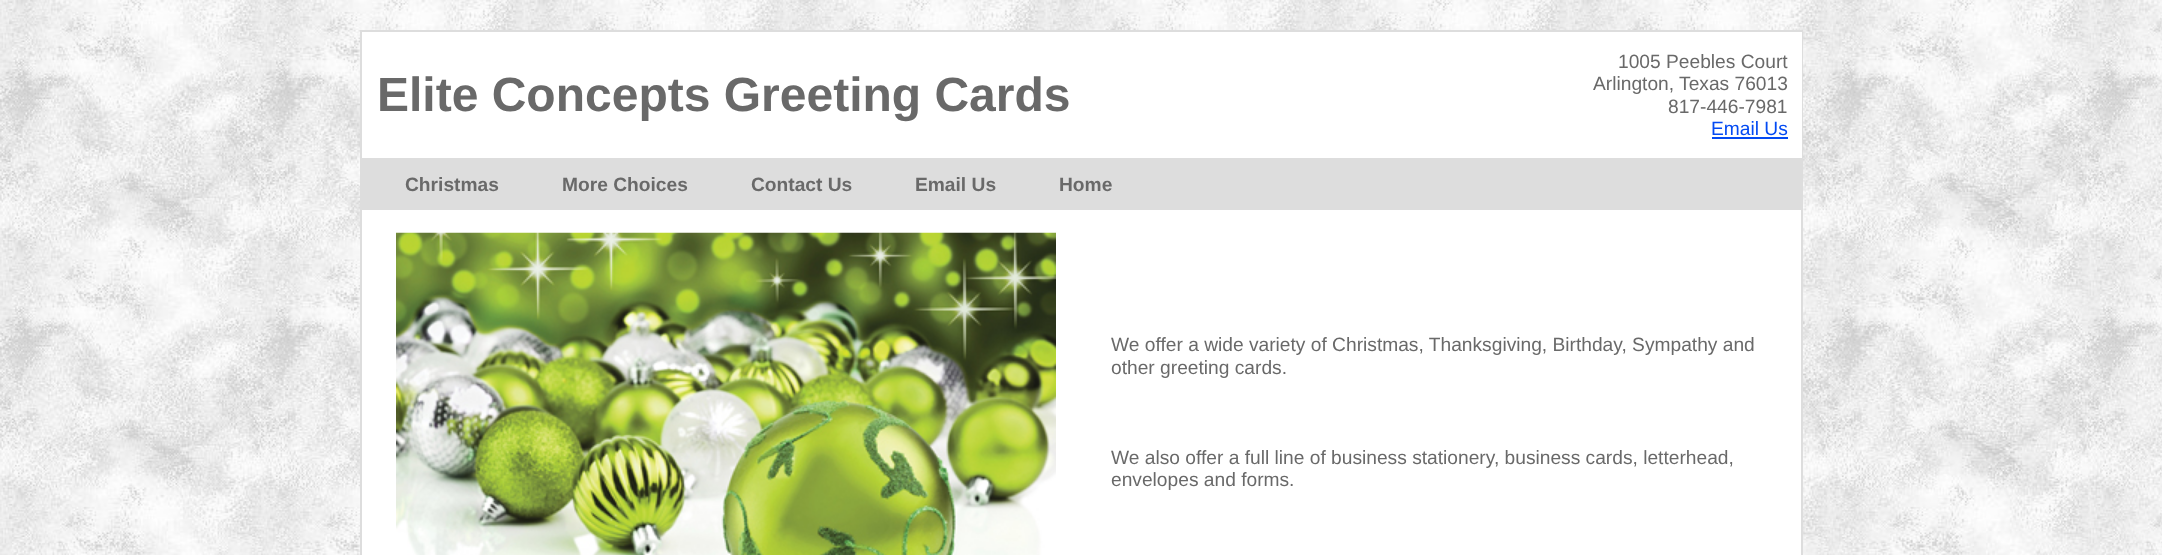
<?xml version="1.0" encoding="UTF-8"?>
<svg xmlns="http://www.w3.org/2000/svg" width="2162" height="555">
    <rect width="100%" height="100%" fill="#FFFFFF"/>
    <image x="0" y="0" width="2162" height="555" href="img_01.png"/>
    <rect x="362" y="210" width="1439" height="345" fill="#FFFFFF"/>
    <rect x="361" y="31" width="1441" height="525" fill="none" stroke="#DDDDDD" stroke-width="2"/>
    <rect x="362" y="32" width="1440" height="126" fill="#FFFFFF"/>
    <text x="377" y="111" font-family="Liberation Sans" font-size="48" font-weight="700" fill="#696969">Elite Concepts Greeting Cards</text>
    <text x="1618" y="68" font-family="Liberation Sans" font-size="19.2" fill="#696969">1005 Peebles Court</text>
    <text x="1593" y="90" font-family="Liberation Sans" font-size="19.2" fill="#696969">Arlington, Texas 76013</text>
    <text x="1668" y="113" font-family="Liberation Sans" font-size="19.2" fill="#696969">817-446-7981</text>
    <text x="1711" y="135" font-family="Liberation Sans" font-size="19.2" fill="#034AF3">Email Us</text>
    <rect x="1712" y="137" width="76" height="2" fill="#034AF3"/>
    <rect x="362" y="158" width="1439" height="52" fill="#DDDDDD"/>
    <text x="405" y="191" font-family="Liberation Sans" font-size="19.2" font-weight="700" fill="#696969">Christmas</text>
    <text x="562" y="191" font-family="Liberation Sans" font-size="19.2" font-weight="700" fill="#696969">More Choices</text>
    <text x="751" y="191" font-family="Liberation Sans" font-size="19.2" font-weight="700" fill="#696969">Contact Us</text>
    <text x="915" y="191" font-family="Liberation Sans" font-size="19.2" font-weight="700" fill="#696969">Email Us</text>
    <text x="1059" y="191" font-family="Liberation Sans" font-size="19.2" font-weight="700" fill="#696969">Home</text>
    <image x="396" y="232" width="660" height="323" href="img_02.png"/>
    <text font-family="Liberation Sans" font-size="19.2" fill="#696969">
        <tspan x="1111" y="351">We offer a wide variety of Christmas, Thanksgiving, Birthday, Sympathy and</tspan>
        <tspan x="1111" y="374">other greeting cards.</tspan>
    </text>
    <text font-family="Liberation Sans" font-size="19.2" fill="#696969">
        <tspan x="1111" y="464">We also offer a full line of business stationery, business cards, letterhead,</tspan>
        <tspan x="1111" y="486">envelopes and forms.</tspan>
    </text>
</svg>
